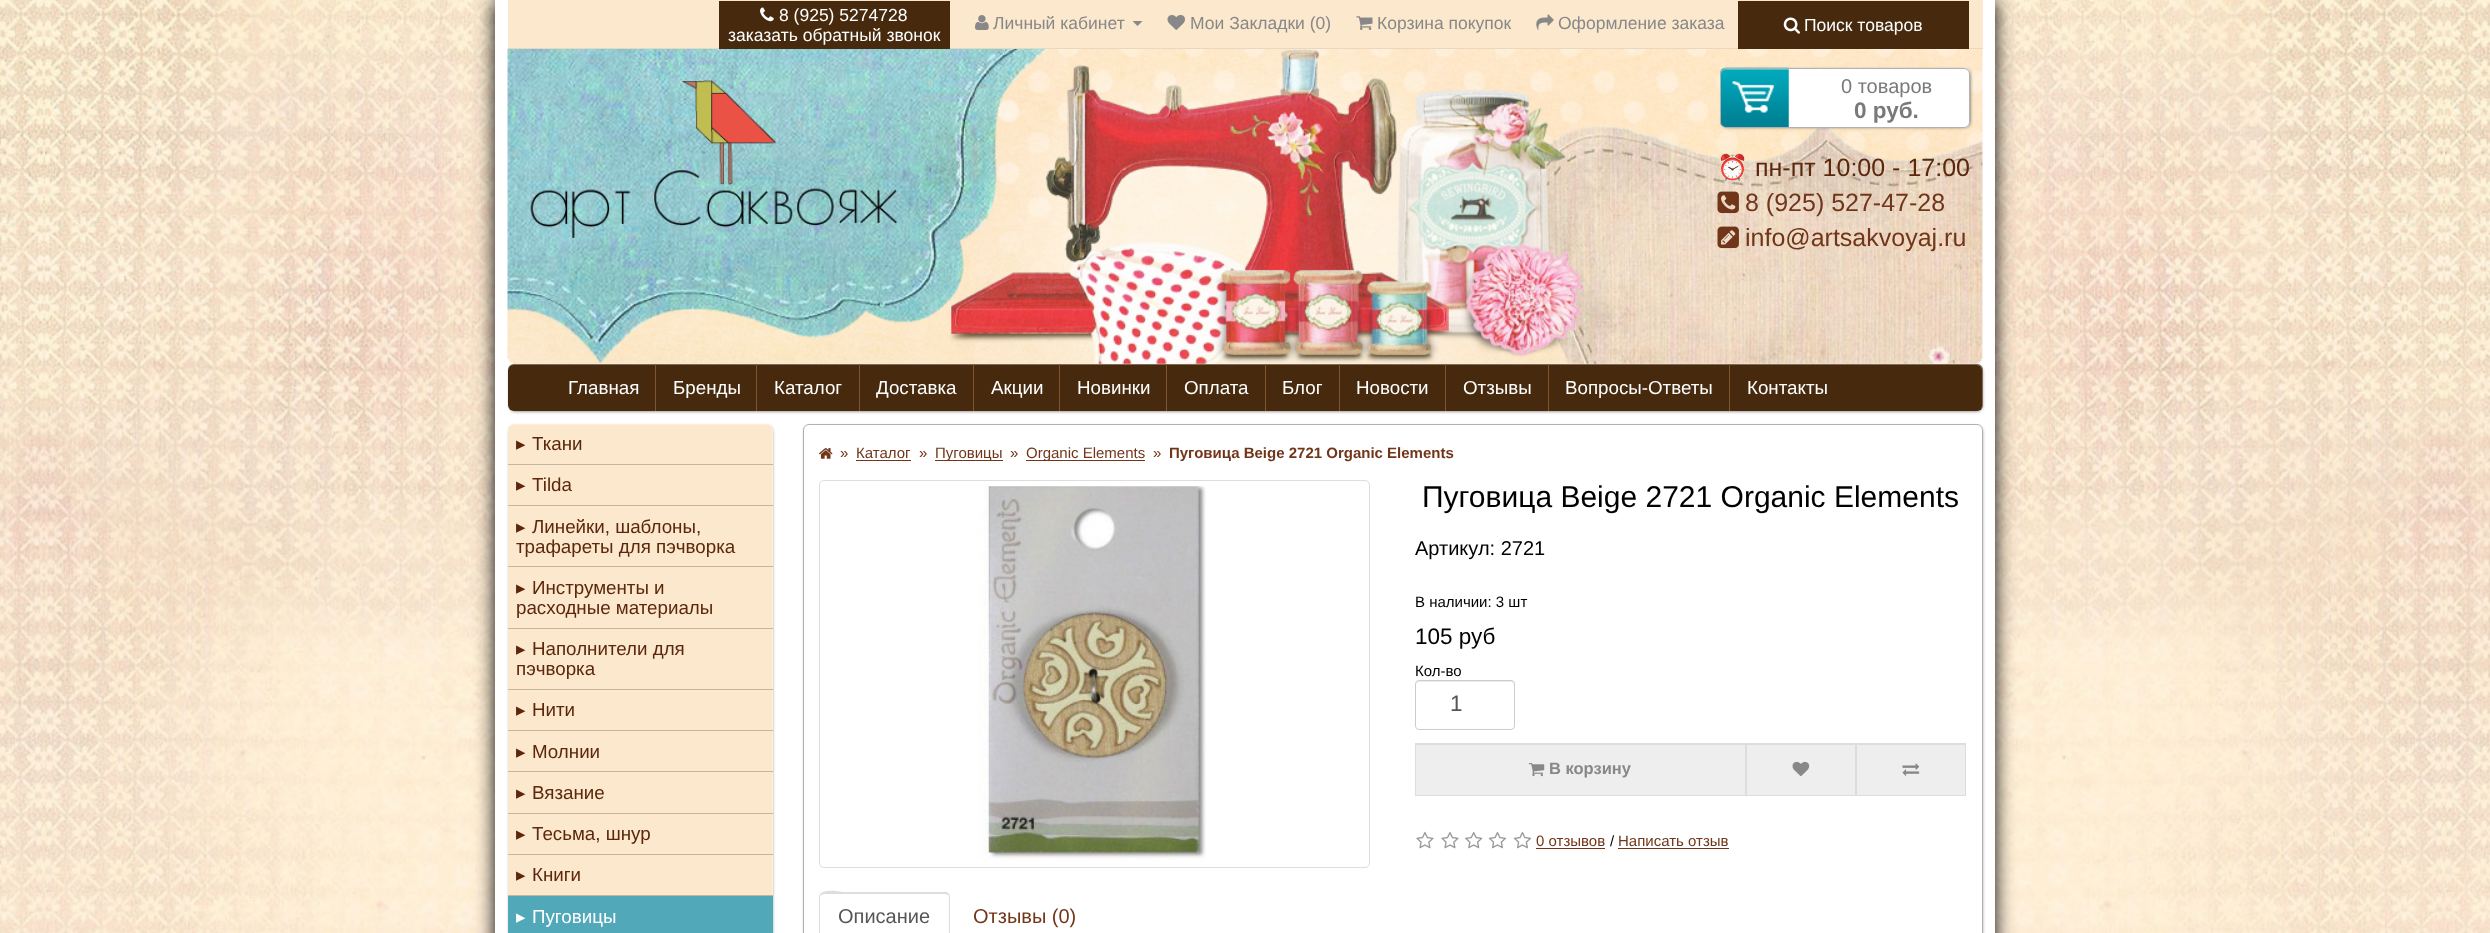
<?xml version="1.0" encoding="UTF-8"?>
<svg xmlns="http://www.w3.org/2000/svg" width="2490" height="933">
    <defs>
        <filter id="blur1" x="-50%" y="-200%" width="200%" height="500%"><feGaussianBlur stdDeviation="9.5"/></filter>
        <filter id="blur2" x="-50%" y="-200%" width="200%" height="500%"><feGaussianBlur stdDeviation="2"/></filter>
        <clipPath id="clip1"><path d="M 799 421 H 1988 V 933 H 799 Z M 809 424 H 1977 C 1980.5 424 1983 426.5 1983 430 V 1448 C 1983 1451.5 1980.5 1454 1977 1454 H 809 C 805.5 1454 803 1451.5 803 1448 V 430 C 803 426.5 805.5 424 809 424 Z" clip-rule="evenodd"/></clipPath>
    </defs>
    <rect width="100%" height="100%" fill="#FFFFFF"/>
    <image x="0" y="0" width="2490" height="933" href="img_01.png"/>
    <rect x="495" y="0" width="1500" height="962" fill="#000000" filter="url(#blur1)"/>
    <rect x="495" y="0" width="1500" height="933" fill="#FFFFFF"/>
    <image x="507" y="48" width="1476" height="316" href="img_02.png"/>
    <rect x="508" y="0" width="1475" height="48" fill="#FBE8CD"/>
    <rect x="508" y="48" width="1475" height="1" fill="#E9D7C0"/>
    <rect x="719" y="1" width="231" height="48" fill="#472A0E"/>
    <image x="760" y="7" width="14" height="15" href="img_03.png"/>
    <text x="779" y="21" font-family="Liberation Sans" font-size="17.5" fill="#FFFFFF">8 (925) 5274728</text>
    <text x="728" y="41" font-family="Liberation Sans" font-size="17.5" fill="#FFFFFF">заказать обратный звонок</text>
    <image x="975" y="15" width="14" height="15" href="img_04.png"/>
    <text x="993" y="29" font-family="Liberation Sans" font-size="17.5" fill="#888888">Личный кабинет</text>
    <path d="M 1132.5 21 H 1142.5 L 1137.5 26 Z" fill="#888888"/>
    <image x="1167" y="15" width="18" height="15" href="img_05.png"/>
    <text x="1190" y="29" font-family="Liberation Sans" font-size="17.5" fill="#888888">Мои Закладки (0)</text>
    <image x="1356" y="16" width="17" height="14" href="img_06.png"/>
    <text x="1377" y="29" font-family="Liberation Sans" font-size="17.5" fill="#888888">Корзина покупок</text>
    <image x="1536" y="14" width="18" height="16" href="img_07.png"/>
    <text x="1558" y="29" font-family="Liberation Sans" font-size="17.5" fill="#888888">Оформление заказа</text>
    <rect x="1738" y="1" width="231" height="48" fill="#472A0E"/>
    <image x="1783" y="17" width="17" height="17" href="img_08.png"/>
    <text x="1804" y="31" font-family="Liberation Sans" font-size="17.5" fill="#FFFFFF">Поиск товаров</text>
    <image x="530" y="80" width="367" height="159" href="img_09.png"/>
    <rect x="1724" y="71" width="245" height="55" rx="4" fill="#000000" filter="url(#blur2)"/>
    <rect x="1720" y="68" width="250" height="60" rx="6" fill="#FFFFFF"/>
    <image x="1720" y="67" width="69" height="61" href="img_10.png"/>
    <path d="M 1726 70 H 1964 C 1967 70 1969 72 1969 75 V 74 C 1969 71 1967 69 1964 69 H 1726 C 1723 69 1721 71 1721 74 V 75 C 1721 72 1723 70 1726 70 Z" fill="#FFFFFF" fill-opacity="0.3"/>
    <rect x="1720.5" y="68.5" width="249" height="59" rx="5.5" fill="none" stroke="#B1B1B1"/>
    <text x="1841" y="93" font-family="Liberation Sans" font-size="20" fill="#797979">0 товаров</text>
    <text x="1854" y="118" font-family="Liberation Sans" font-size="22.5" font-weight="700" fill="#797979">0 руб.</text>
    <text x="1717" y="176" font-family="Noto Color Emoji" font-size="25" fill="#5C270C">⏰</text>
    <text x="1755" y="176" font-family="Liberation Sans" font-size="25" fill="#5C270C">пн-пт 10:00 - 17:00</text>
    <image x="1717" y="191" width="22" height="23" href="img_11.png"/>
    <text x="1745" y="211" font-family="Liberation Sans" font-size="25" fill="#713619">8 (925) 527-47-28</text>
    <image x="1717" y="226" width="22" height="23" href="img_12.png"/>
    <text x="1745" y="246" font-family="Liberation Sans" font-size="25" fill="#713619">info@artsakvoyaj.ru</text>
    <rect x="511" y="368" width="1470" height="42" rx="4" fill="#000000" filter="url(#blur2)"/>
    <rect x="508" y="364" width="1475" height="47" rx="6" fill="#472A0E"/>
    <path d="M 514 365 H 1976 C 1980 365 1982 368 1982 371 V 406 L 1981 409 C 1982 408 1983 407 1983 405 V 370 C 1983 367 1980 364 1977 364 H 514 C 511 364 508 367 508 370 V 371 C 508 368 510 365 514 365 Z" fill="#FFFFFF" fill-opacity="0.3"/>
    <rect x="655" y="364" width="1" height="47" fill="#81562C"/>
    <text x="568" y="394" font-family="Liberation Sans" font-size="18.75" fill="#FFFFFF">Главная</text>
    <rect x="756" y="364" width="1" height="47" fill="#81562C"/>
    <text x="673" y="394" font-family="Liberation Sans" font-size="18.75" fill="#FFFFFF">Бренды</text>
    <rect x="859" y="364" width="1" height="47" fill="#81562C"/>
    <text x="774" y="394" font-family="Liberation Sans" font-size="18.75" fill="#FFFFFF">Каталог</text>
    <rect x="973" y="364" width="1" height="47" fill="#81562C"/>
    <text x="876" y="394" font-family="Liberation Sans" font-size="18.75" fill="#FFFFFF">Доставка</text>
    <rect x="1059" y="364" width="1" height="47" fill="#81562C"/>
    <text x="991" y="394" font-family="Liberation Sans" font-size="18.75" fill="#FFFFFF">Акции</text>
    <rect x="1166" y="364" width="1" height="47" fill="#81562C"/>
    <text x="1077" y="394" font-family="Liberation Sans" font-size="18.75" fill="#FFFFFF">Новинки</text>
    <rect x="1265" y="364" width="1" height="47" fill="#81562C"/>
    <text x="1184" y="394" font-family="Liberation Sans" font-size="18.75" fill="#FFFFFF">Оплата</text>
    <rect x="1339" y="364" width="1" height="47" fill="#81562C"/>
    <text x="1282" y="394" font-family="Liberation Sans" font-size="18.75" fill="#FFFFFF">Блог</text>
    <rect x="1445" y="364" width="1" height="47" fill="#81562C"/>
    <text x="1356" y="394" font-family="Liberation Sans" font-size="18.75" fill="#FFFFFF">Новости</text>
    <rect x="1548" y="364" width="1" height="47" fill="#81562C"/>
    <text x="1463" y="394" font-family="Liberation Sans" font-size="18.75" fill="#FFFFFF">Отзывы</text>
    <rect x="1729" y="364" width="1" height="47" fill="#81562C"/>
    <text x="1565" y="394" font-family="Liberation Sans" font-size="18.75" fill="#FFFFFF">Вопросы-Ответы</text>
    <text x="1747" y="394" font-family="Liberation Sans" font-size="18.75" fill="#FFFFFF">Контакты</text>
    <rect x="511" y="428" width="260" height="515" rx="4" fill="#000000" filter="url(#blur2)"/>
    <rect x="508" y="424" width="265" height="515" rx="6" fill="#FBE8CD"/>
    <path d="M 514 425 H 766 C 770 425 772 428 772 431 V 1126 L 771 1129 C 772 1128 773 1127 773 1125 V 430 C 773 427 770 424 767 424 H 514 C 511 424 508 427 508 430 V 431 C 508 428 510 425 514 425 Z" fill="#FFFFFF" fill-opacity="0.3"/>
    <text x="516" y="450" font-family="DejaVu Sans" font-size="18.75" fill="#5C270C">▸</text>
    <text x="532" y="450" font-family="Liberation Sans" font-size="18.75" fill="#5C270C">Ткани</text>
    <rect x="508" y="464" width="265" height="1" fill="#C6B59E"/>
    <text x="516" y="491" font-family="DejaVu Sans" font-size="18.75" fill="#5C270C">▸</text>
    <text x="532" y="491" font-family="Liberation Sans" font-size="18.75" fill="#5C270C">Tilda</text>
    <rect x="508" y="505" width="265" height="1" fill="#C6B59E"/>
    <text x="516" y="533" font-family="DejaVu Sans" font-size="18.75" fill="#5C270C">▸</text>
    <text x="532" y="533" font-family="Liberation Sans" font-size="18.75" fill="#5C270C">Линейки, шаблоны,</text>
    <text x="516" y="553" font-family="Liberation Sans" font-size="18.75" fill="#5C270C">трафареты для пэчворка</text>
    <rect x="508" y="566" width="265" height="1" fill="#C6B59E"/>
    <text x="516" y="594" font-family="DejaVu Sans" font-size="18.75" fill="#5C270C">▸</text>
    <text x="532" y="594" font-family="Liberation Sans" font-size="18.75" fill="#5C270C">Инструменты и</text>
    <text x="516" y="614" font-family="Liberation Sans" font-size="18.75" fill="#5C270C">расходные материалы</text>
    <rect x="508" y="628" width="265" height="1" fill="#C6B59E"/>
    <text x="516" y="655" font-family="DejaVu Sans" font-size="18.75" fill="#5C270C">▸</text>
    <text x="532" y="655" font-family="Liberation Sans" font-size="18.75" fill="#5C270C">Наполнители для</text>
    <text x="516" y="675" font-family="Liberation Sans" font-size="18.75" fill="#5C270C">пэчворка</text>
    <rect x="508" y="689" width="265" height="1" fill="#C6B59E"/>
    <text x="516" y="716" font-family="DejaVu Sans" font-size="18.75" fill="#5C270C">▸</text>
    <text x="532" y="716" font-family="Liberation Sans" font-size="18.75" fill="#5C270C">Нити</text>
    <rect x="508" y="730" width="265" height="1" fill="#C6B59E"/>
    <text x="516" y="758" font-family="DejaVu Sans" font-size="18.75" fill="#5C270C">▸</text>
    <text x="532" y="758" font-family="Liberation Sans" font-size="18.75" fill="#5C270C">Молнии</text>
    <rect x="508" y="771" width="265" height="1" fill="#C6B59E"/>
    <text x="516" y="799" font-family="DejaVu Sans" font-size="18.75" fill="#5C270C">▸</text>
    <text x="532" y="799" font-family="Liberation Sans" font-size="18.75" fill="#5C270C">Вязание</text>
    <rect x="508" y="813" width="265" height="1" fill="#C6B59E"/>
    <text x="516" y="840" font-family="DejaVu Sans" font-size="18.75" fill="#5C270C">▸</text>
    <text x="532" y="840" font-family="Liberation Sans" font-size="18.75" fill="#5C270C">Тесьма, шнур</text>
    <rect x="508" y="854" width="265" height="1" fill="#C6B59E"/>
    <text x="516" y="881" font-family="DejaVu Sans" font-size="18.75" fill="#5C270C">▸</text>
    <text x="532" y="881" font-family="Liberation Sans" font-size="18.75" fill="#5C270C">Книги</text>
    <rect x="508" y="896" width="265" height="37" fill="#51A8B9"/>
    <rect x="508" y="895" width="265" height="1" fill="#C6B59E"/>
    <text x="516" y="923" font-family="DejaVu Sans" font-size="18.75" fill="#FFFFFF">▸</text>
    <text x="532" y="923" font-family="Liberation Sans" font-size="18.75" fill="#FFFFFF">Пуговицы</text>
    <g clip-path="url(#clip1)">
        <rect x="806" y="428" width="1175" height="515" rx="4" fill="#000000" filter="url(#blur2)"/>
    </g>
    <rect x="803.5" y="424.5" width="1179" height="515" rx="5.5" fill="none" stroke="#B1B1B1"/>
    <image x="819" y="448" width="14" height="11" href="img_13.png"/>
    <text x="840" y="458" font-family="Liberation Sans" font-size="15" fill="#713619">»</text>
    <text x="856" y="458" font-family="Liberation Sans" font-size="15" fill="#713619">Каталог</text>
    <rect x="856" y="460" width="55" height="1" fill="#713619"/>
    <text x="919" y="458" font-family="Liberation Sans" font-size="15" fill="#713619">»</text>
    <rect x="935" y="460" width="68" height="1" fill="#713619"/>
    <text x="935" y="458" font-family="Liberation Sans" font-size="15" fill="#713619">Пуговицы</text>
    <text x="1010" y="458" font-family="Liberation Sans" font-size="15" fill="#713619">»</text>
    <rect x="1026" y="460" width="119" height="1" fill="#713619"/>
    <text x="1026" y="458" font-family="Liberation Sans" font-size="15" fill="#713619">Organic Elements</text>
    <text x="1153" y="458" font-family="Liberation Sans" font-size="15" fill="#713619">»</text>
    <text x="1169" y="458" font-family="Liberation Sans" font-size="15" font-weight="700" fill="#713619">Пуговица Beige 2721 Organic Elements</text>
    <rect x="819.5" y="480.5" width="550" height="387" rx="4.5" fill="none" stroke="#DDDDDD"/>
    <image x="978" y="486" width="228" height="375" href="img_14.png"/>
    <text x="1422" y="507" font-family="Liberation Sans" font-size="30" fill="#000000">Пуговица Beige 2721 Organic Elements</text>
    <text x="1415" y="555" font-family="Liberation Sans" font-size="20" fill="#000000">Артикул: 2721</text>
    <text x="1415" y="607" font-family="Liberation Sans" font-size="15" fill="#000000">В наличии: 3 шт</text>
    <text x="1415" y="644" font-family="Liberation Sans" font-size="22.5" fill="#000000">105 руб</text>
    <text x="1415" y="676" font-family="Liberation Sans" font-size="15" fill="#000000">Кол-во</text>
    <path d="M 1419 682 H 1511 C 1513 682 1514 684 1514 685 V 684 C 1514 682 1513 681 1512 681 H 1418 C 1417 681 1416 682 1416 684 V 685 C 1416 684 1417 682 1419 682 Z" fill="#ECECEC"/>
    <rect x="1415.5" y="680.5" width="99" height="49" rx="3.5" fill="none" stroke="#CCCCCC"/>
    <text x="1450" y="711" font-family="Liberation Sans" font-size="22.5" fill="#555555">1</text>
    <rect x="1416" y="745" width="549" height="50" fill="#EEEEEE"/>
    <rect x="1415" y="743" width="551" height="1" fill="#DDDDDD"/>
    <rect x="1415.5" y="744.5" width="330" height="51" fill="none" stroke="#DDDDDD"/>
    <image x="1528" y="763" width="17" height="14" href="img_15.png"/>
    <text x="1549" y="774" font-family="Liberation Sans" font-size="16.5" font-weight="700" fill="#888888">В корзину</text>
    <rect x="1746.5" y="744.5" width="109" height="51" fill="none" stroke="#DDDDDD"/>
    <image x="1792" y="761" width="18" height="16" href="img_16.png"/>
    <rect x="1856.5" y="744.5" width="109" height="51" fill="none" stroke="#DDDDDD"/>
    <image x="1902" y="763" width="18" height="13" href="img_17.png"/>
    <image x="1416" y="831" width="18" height="18" href="img_18.png"/>
    <image x="1441" y="831" width="18" height="18" href="img_18.png"/>
    <image x="1465" y="831" width="18" height="18" href="img_19.png"/>
    <image x="1488" y="831" width="19" height="18" href="img_20.png"/>
    <image x="1513" y="831" width="19" height="18" href="img_20.png"/>
    <text x="1536" y="846" font-family="Liberation Sans" font-size="15" fill="#713619">0 отзывов</text>
    <rect x="1536" y="848" width="69" height="1" fill="#713619"/>
    <text x="1610" y="846" font-family="Liberation Sans" font-size="15" fill="#000000">/</text>
    <text x="1618" y="846" font-family="Liberation Sans" font-size="15" fill="#713619">Написать отзыв</text>
    <rect x="1618" y="848" width="111" height="1" fill="#713619"/>
    <path d="M 824 894 L 821 895 L 820 894 C 825 888 843 892 843 892 H 947 L 949 894 L 948 895 L 945 894 Z" fill="#DDDDDD"/>
    <path d="M 950 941 V 898 C 950 896 950 895 949 894 L 948 895 C 948 895 949 896 949 898 V 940 Z" fill="#DDDDDD"/>
    <path d="M 819 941 L 820 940 V 898 C 820 897 820 896 821 895 L 820 894 C 819 895 819 897 819 898 Z" fill="#DDDDDD"/>
    <text x="838" y="923" font-family="Liberation Sans" font-size="20" fill="#555555">Описание</text>
    <text x="973" y="923" font-family="Liberation Sans" font-size="20" fill="#713619">Отзывы (0)</text>
</svg>
